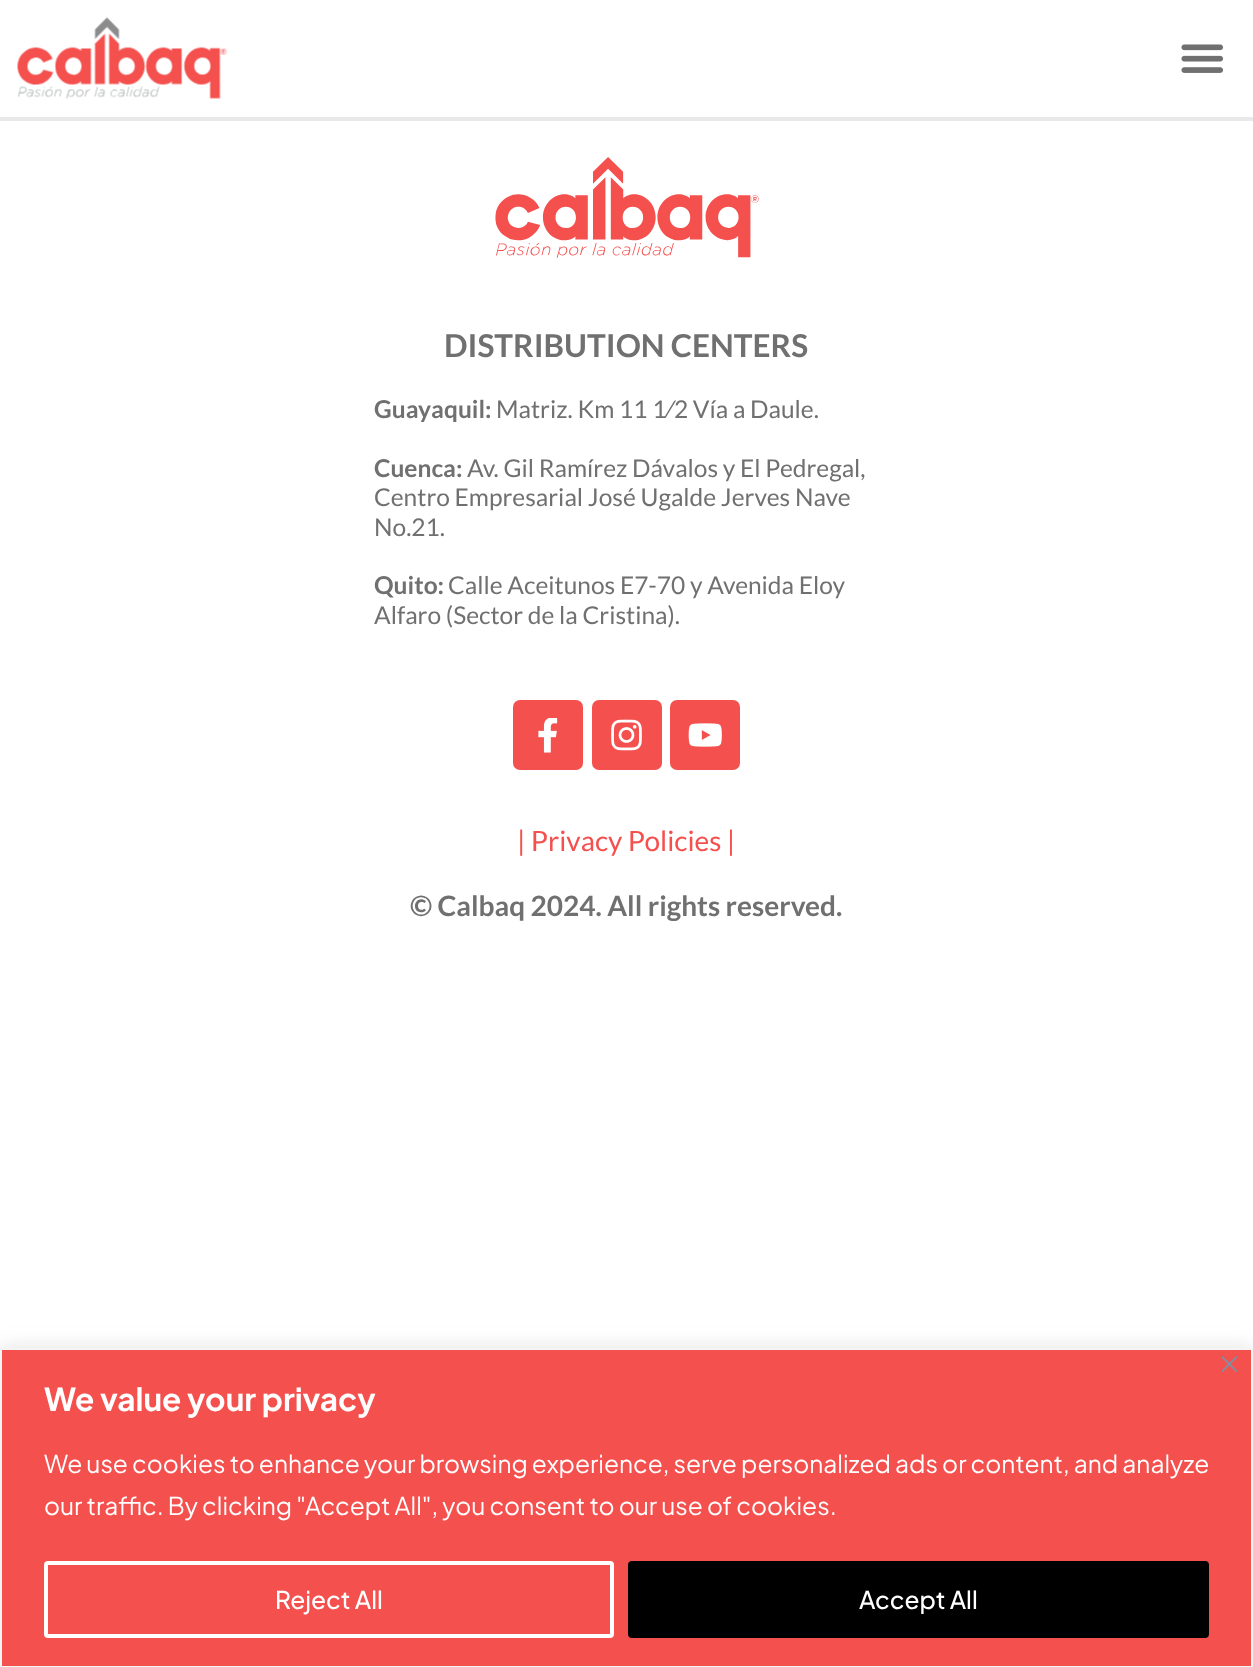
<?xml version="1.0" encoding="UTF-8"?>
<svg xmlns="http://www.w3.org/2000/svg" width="1253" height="1667">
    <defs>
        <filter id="blur1" x="-50%" y="-200%" width="200%" height="500%"><feGaussianBlur stdDeviation="9"/></filter>
    </defs>
    <rect width="100%" height="100%" fill="#FFFFFF"/>
    <image x="17" y="17" width="210" height="82" href="img_01.png"/>
    <image x="1181" y="44" width="43" height="29" href="img_02.png"/>
    <rect x="0" y="117" width="1253" height="4" fill="#E9E9E9"/>
    <image x="495" y="157" width="264" height="101" href="img_03.png"/>
    <text x="444" y="357" font-family="Lato" font-size="31.5" font-weight="700" fill="#707070">DISTRIBUTION CENTERS</text>
    <text x="374" y="418" font-family="Lato" font-size="24.5" font-weight="700" fill="#707070">Guayaquil:</text>
    <text x="496" y="418" font-family="Lato" font-size="24.5" fill="#707070">Matriz. Km 11 1⁄2 Vía a Daule.</text>
    <text x="374" y="477" font-family="Lato" font-size="24.5" font-weight="700" fill="#707070">Cuenca:</text>
    <text x="467" y="477" font-family="Lato" font-size="24.5" fill="#707070">Av. Gil Ramírez Dávalos y El Pedregal,</text>
    <text font-family="Lato" font-size="24.5" fill="#707070">
        <tspan x="374" y="506">Centro Empresarial José Ugalde Jerves Nave</tspan>
        <tspan x="374" y="536">No.21.</tspan>
    </text>
    <text x="374" y="594" font-family="Lato" font-size="24.5" font-weight="700" fill="#707070">Quito:</text>
    <text x="448" y="594" font-family="Lato" font-size="24.5" fill="#707070">Calle Aceitunos E7-70 y Avenida Eloy</text>
    <text x="374" y="624" font-family="Lato" font-size="24.5" fill="#707070">Alfaro (Sector de la Cristina).</text>
    <rect x="513" y="700" width="70" height="70" rx="7" fill="#F4504E"/>
    <image x="538" y="718" width="20" height="35" href="img_04.png"/>
    <rect x="592" y="700" width="70" height="70" rx="7" fill="#F4504E"/>
    <image x="611" y="719" width="31" height="32" href="img_05.png"/>
    <rect x="670" y="700" width="70" height="70" rx="7" fill="#F4504E"/>
    <image x="688" y="723" width="34" height="24" href="img_06.png"/>
    <text x="517" y="851" font-family="Lato" font-size="28" fill="#F4504E">| Privacy Policies |</text>
    <text x="410" y="916" font-family="Lato" font-size="28" font-weight="700" fill="#707070">© Calbaq 2024. All rights reserved.</text>
    <rect x="0" y="1346" width="1253" height="320" fill="#ACABAB" fill-opacity="0.3" filter="url(#blur1)"/>
    <rect x="1" y="1349" width="1251" height="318" fill="#F4504E" stroke="#F4F4F4" stroke-width="2"/>
    <image x="1222" y="1356" width="15" height="16" href="img_07.png"/>
    <text x="44" y="1411" font-family="Plus Jakarta Sans" font-size="31.5" font-weight="700" fill="#FFFFFF">We value your privacy</text>
    <text font-family="Plus Jakarta Sans" font-size="24.5" fill="#FFFFFF">
        <tspan x="44" y="1473">We use cookies to enhance your browsing experience, serve personalized ads or content, and analyze</tspan>
        <tspan x="44" y="1515">our traffic. By clicking "Accept All", you consent to our use of cookies.</tspan>
    </text>
    <rect x="46" y="1563" width="566" height="73" rx="2" fill="none" stroke="#FFFFFF" stroke-width="4"/>
    <text x="275" y="1609" font-family="Plus Jakarta Sans" font-size="24.5" font-weight="500" fill="#FFFFFF">Reject All</text>
    <rect x="630" y="1563" width="577" height="73" rx="2" fill="#000000" stroke="#000000" stroke-width="4"/>
    <text x="859" y="1609" font-family="Plus Jakarta Sans" font-size="24.5" font-weight="500" fill="#FFFFFF">Accept All</text>
</svg>
